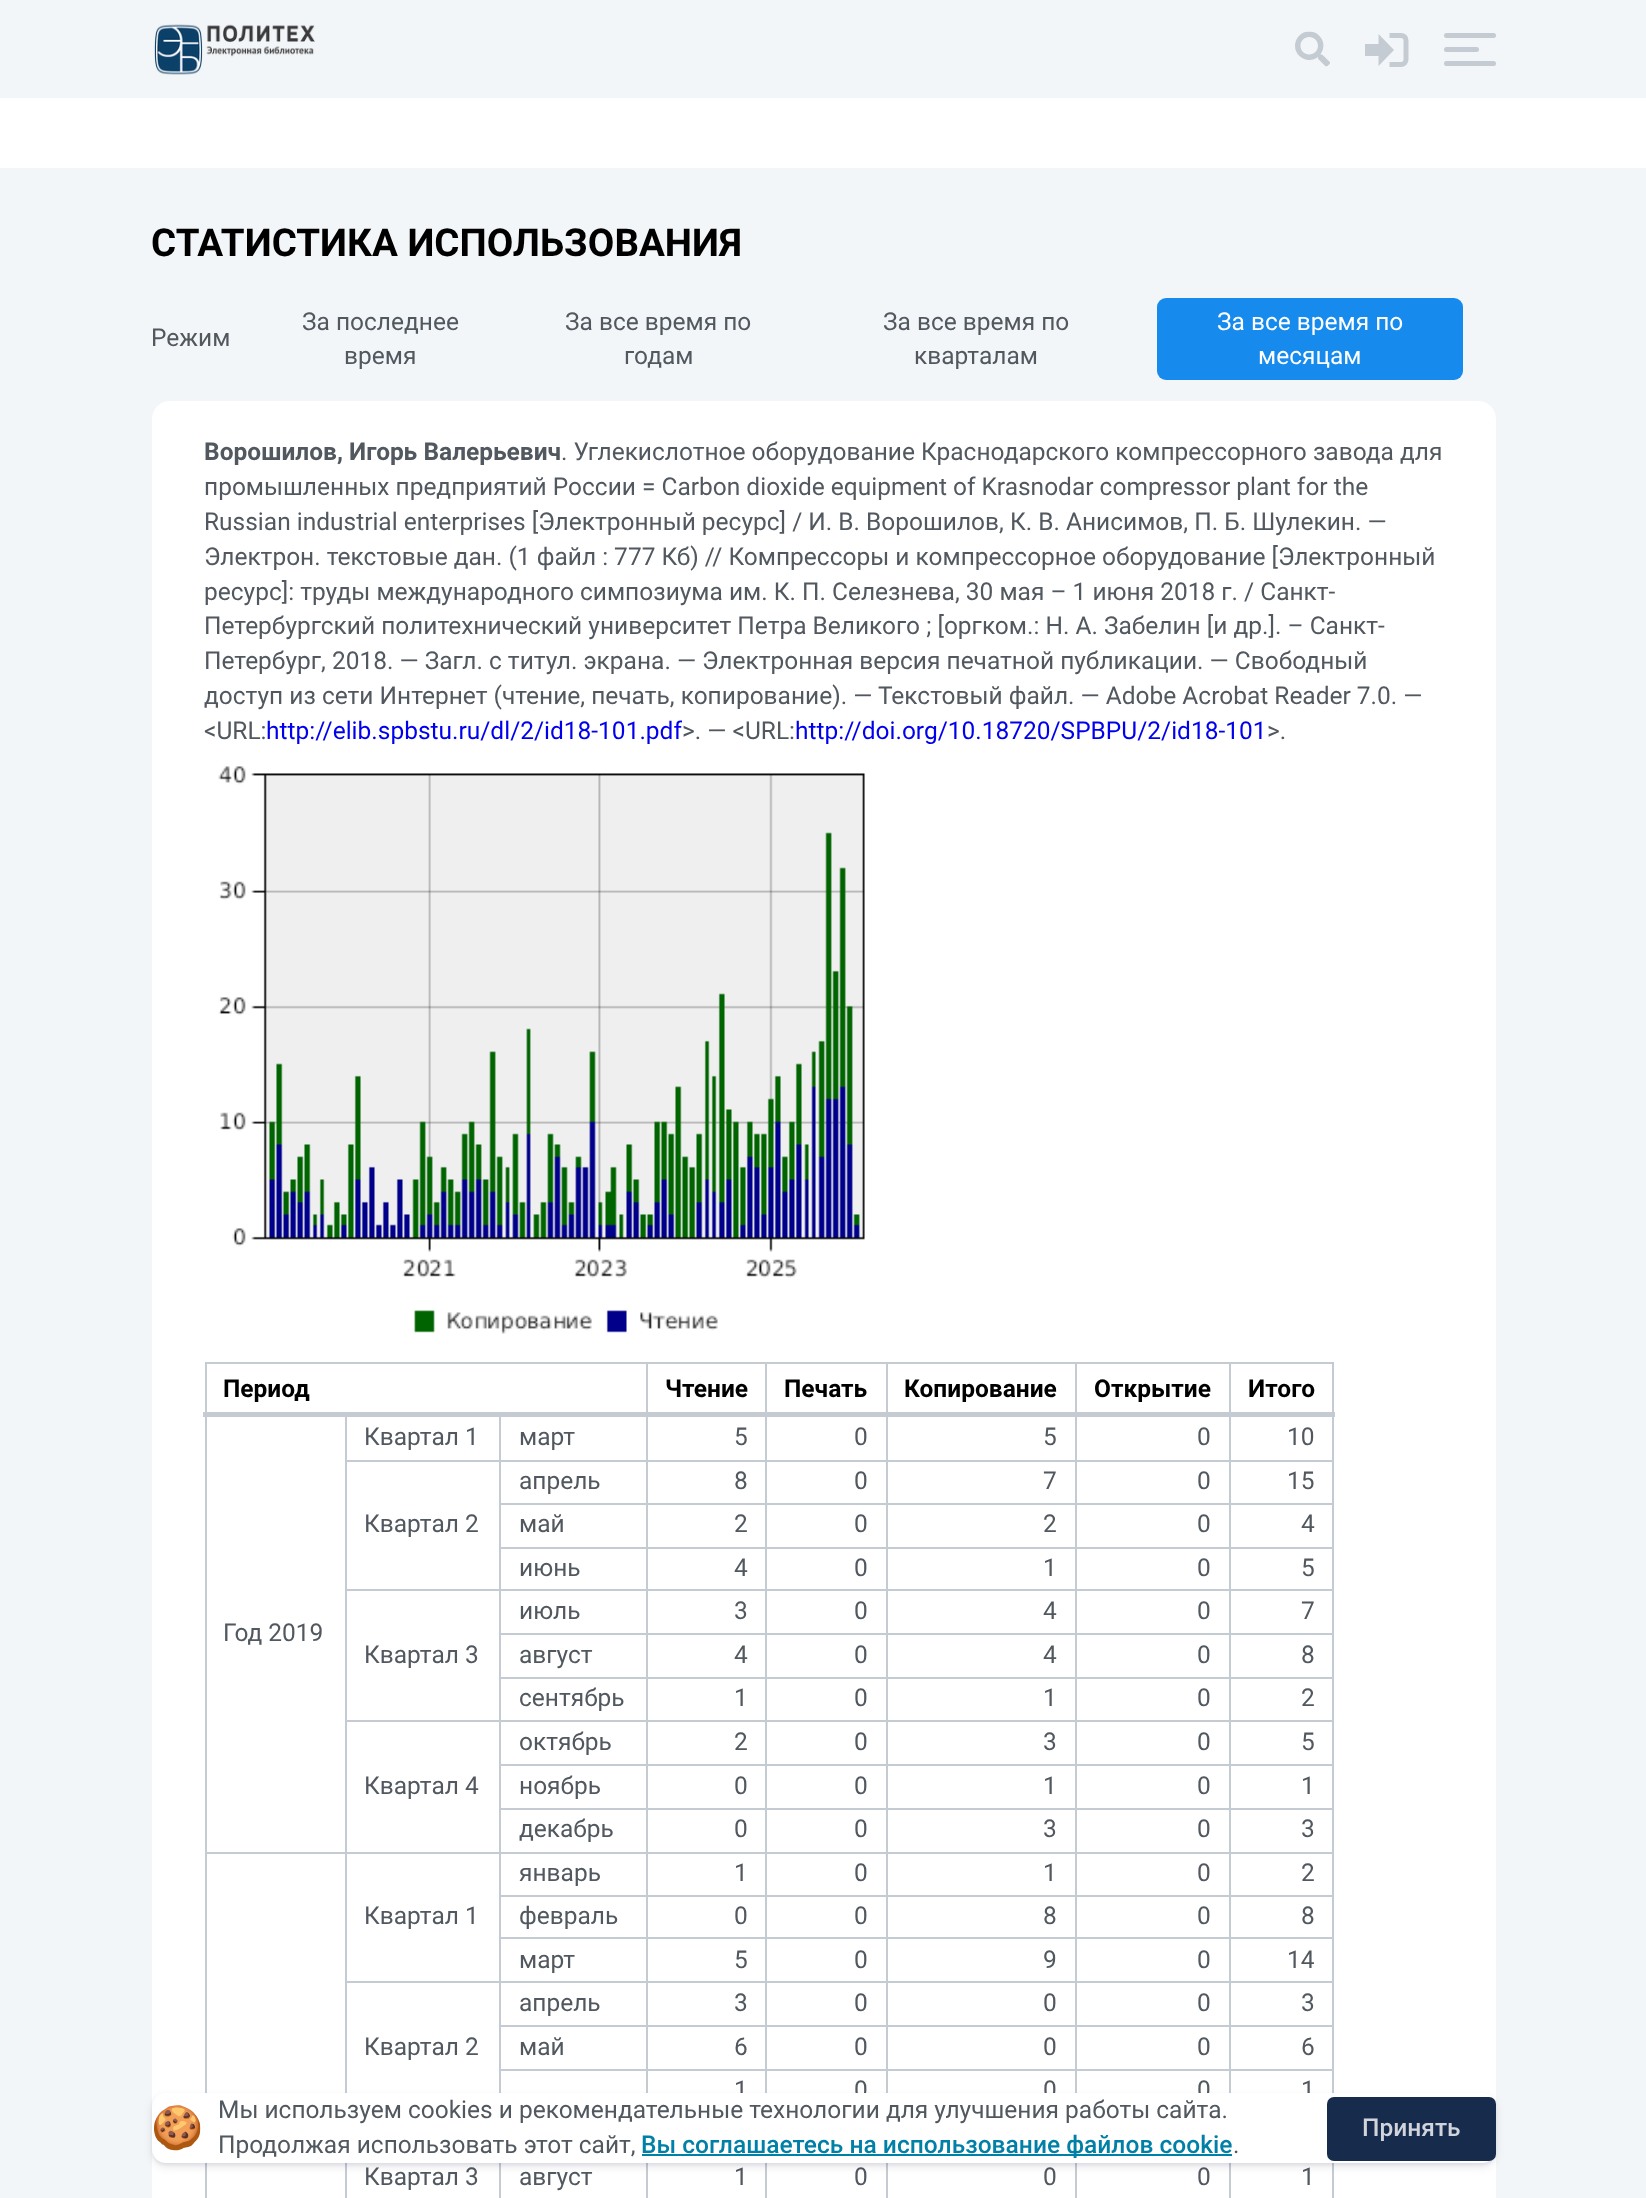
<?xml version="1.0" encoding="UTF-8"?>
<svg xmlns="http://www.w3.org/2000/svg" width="1646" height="2198">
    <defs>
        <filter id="blur1" x="-50%" y="-200%" width="200%" height="500%"><feGaussianBlur stdDeviation="1.5"/></filter>
        <filter id="blur2" x="-50%" y="-200%" width="200%" height="500%"><feGaussianBlur stdDeviation="4"/></filter>
    </defs>
    <rect width="100%" height="100%" fill="#F3F6F8"/>
    <image x="154" y="24" width="161" height="51" href="img_01.png"/>
    <image x="1295" y="31" width="35" height="36" href="img_02.png"/>
    <path d="M 1389.5 35.5 H 1401 C 1404 35.5 1406 37.5 1406 40.5 V 59.5 C 1406 62 1404 64.5 1401 64.5 H 1389.5" fill="none" stroke="#C4CBD2" stroke-width="5"/>
    <path d="M 1394 50 L 1378.5 66 V 34 Z" fill="#C4CBD2"/>
    <rect x="1365" y="44" width="14" height="12" fill="#C4CBD2"/>
    <rect x="1444" y="33" width="52" height="5" rx="2.5" fill="#C4CBD2"/>
    <rect x="1444" y="47" width="35" height="5" rx="2.5" fill="#C4CBD2"/>
    <rect x="1444" y="61" width="52" height="5" rx="2.5" fill="#C4CBD2"/>
    <rect x="0" y="98" width="1646" height="70" fill="#FFFFFF"/>
    <text x="151" y="256" font-family="Roboto" font-size="38.5" font-weight="700" fill="#000000">СТАТИСТИКА ИСПОЛЬЗОВАНИЯ</text>
    <text x="151" y="346" font-family="Roboto" font-size="24.5" fill="#52585F">Режим</text>
    <text x="302" y="330" font-family="Roboto" font-size="24.5" fill="#52585F">За последнее</text>
    <text x="344" y="364" font-family="Roboto" font-size="24.5" fill="#52585F">время</text>
    <text x="565" y="330" font-family="Roboto" font-size="24.5" fill="#52585F">За все время по</text>
    <text x="624" y="364" font-family="Roboto" font-size="24.5" fill="#52585F">годам</text>
    <text x="883" y="330" font-family="Roboto" font-size="24.5" fill="#52585F">За все время по</text>
    <text x="914" y="364" font-family="Roboto" font-size="24.5" fill="#52585F">кварталам</text>
    <rect x="1157" y="298" width="306" height="82" rx="9" fill="#168AED"/>
    <text x="1217" y="330" font-family="Roboto" font-size="24.5" fill="#FFFFFF">За все время по</text>
    <text x="1258" y="364" font-family="Roboto" font-size="24.5" fill="#FFFFFF">месяцам</text>
    <rect x="152" y="401" width="1344" height="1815" rx="18" fill="#FFFFFF"/>
    <text x="204" y="460" font-family="Roboto" font-size="24.5" font-weight="700" fill="#52585F">Ворошилов, Игорь Валерьевич</text>
    <text x="561" y="460" font-family="Roboto" font-size="24.5" fill="#52585F">. Углекислотное оборудование Краснодарского компрессорного завода для</text>
    <text font-family="Roboto" font-size="24.5" fill="#52585F">
        <tspan x="204" y="495">промышленных предприятий России = Carbon dioxide equipment of Krasnodar compressor plant for the</tspan>
        <tspan x="204" y="530">Russian industrial enterprises [Электронный ресурс] / И. В. Ворошилов, К. В. Анисимов, П. Б. Шулекин. —</tspan>
        <tspan x="204" y="565">Электрон. текстовые дан. (1 файл : 777 Кб) // Компрессоры и компрессорное оборудование [Электронный</tspan>
        <tspan x="204" y="600">ресурс]: труды международного симпозиума им. К. П. Селезнева, 30 мая – 1 июня 2018 г. / Санкт-</tspan>
        <tspan x="204" y="634">Петербургский политехнический университет Петра Великого ; [оргком.: Н. А. Забелин [и др.]. – Санкт-</tspan>
        <tspan x="204" y="669">Петербург, 2018. — Загл. с титул. экрана. — Электронная версия печатной публикации. — Свободный</tspan>
        <tspan x="204" y="704">доступ из сети Интернет (чтение, печать, копирование). — Текстовый файл. — Adobe Acrobat Reader 7.0. —</tspan>
        <tspan x="204" y="739">&lt;URL:</tspan>
    </text>
    <text x="266" y="739" font-family="Roboto" font-size="24.5" fill="#0000EE">http://elib.spbstu.ru/dl/2/id18-101.pdf</text>
    <text x="682" y="739" font-family="Roboto" font-size="24.5" fill="#52585F">&gt;. — &lt;URL:</text>
    <text x="795" y="739" font-family="Roboto" font-size="24.5" fill="#0000EE">http://doi.org/10.18720/SPBPU/2/id18-101</text>
    <text x="1267" y="739" font-family="Roboto" font-size="24.5" fill="#52585F">&gt;.</text>
    <image x="218" y="766" width="647" height="568" href="img_03.png"/>
    <rect x="1229" y="1362" width="105" height="2" fill="#C4CBD2"/>
    <rect x="1229" y="1460" width="105" height="2" fill="#C4CBD2"/>
    <rect x="1229" y="1503" width="105" height="2" fill="#C4CBD2"/>
    <rect x="1229" y="1547" width="105" height="2" fill="#C4CBD2"/>
    <rect x="1229" y="1589" width="105" height="2" fill="#C4CBD2"/>
    <rect x="1229" y="1633" width="105" height="2" fill="#C4CBD2"/>
    <rect x="1229" y="1677" width="105" height="2" fill="#C4CBD2"/>
    <rect x="1229" y="1720" width="105" height="2" fill="#C4CBD2"/>
    <rect x="1229" y="1764" width="105" height="2" fill="#C4CBD2"/>
    <rect x="1229" y="1808" width="105" height="2" fill="#C4CBD2"/>
    <rect x="1229" y="1852" width="105" height="2" fill="#C4CBD2"/>
    <rect x="1229" y="1895" width="105" height="2" fill="#C4CBD2"/>
    <rect x="1229" y="1937" width="105" height="2" fill="#C4CBD2"/>
    <rect x="1229" y="1981" width="105" height="2" fill="#C4CBD2"/>
    <rect x="1229" y="2025" width="105" height="2" fill="#C4CBD2"/>
    <rect x="1229" y="2069" width="105" height="2" fill="#C4CBD2"/>
    <rect x="1229" y="2069" width="2" height="24" fill="#C4CBD2"/>
    <rect x="1075" y="2069" width="155" height="2" fill="#C4CBD2"/>
    <rect x="1229" y="2025" width="2" height="45" fill="#C4CBD2"/>
    <rect x="1075" y="2025" width="155" height="2" fill="#C4CBD2"/>
    <rect x="1229" y="1981" width="2" height="46" fill="#C4CBD2"/>
    <rect x="1075" y="1981" width="155" height="2" fill="#C4CBD2"/>
    <rect x="1229" y="1937" width="2" height="46" fill="#C4CBD2"/>
    <rect x="1075" y="1937" width="155" height="2" fill="#C4CBD2"/>
    <rect x="1229" y="1895" width="2" height="44" fill="#C4CBD2"/>
    <rect x="1075" y="1895" width="155" height="2" fill="#C4CBD2"/>
    <rect x="1229" y="1852" width="2" height="45" fill="#C4CBD2"/>
    <rect x="1075" y="1852" width="155" height="2" fill="#C4CBD2"/>
    <rect x="1229" y="1808" width="2" height="45" fill="#C4CBD2"/>
    <rect x="1075" y="1808" width="155" height="2" fill="#C4CBD2"/>
    <rect x="1229" y="1764" width="2" height="46" fill="#C4CBD2"/>
    <rect x="1075" y="1764" width="155" height="2" fill="#C4CBD2"/>
    <rect x="1229" y="1720" width="2" height="46" fill="#C4CBD2"/>
    <rect x="1075" y="1720" width="155" height="2" fill="#C4CBD2"/>
    <rect x="1229" y="1677" width="2" height="45" fill="#C4CBD2"/>
    <rect x="1075" y="1677" width="155" height="2" fill="#C4CBD2"/>
    <rect x="1229" y="1633" width="2" height="45" fill="#C4CBD2"/>
    <rect x="1075" y="1633" width="155" height="2" fill="#C4CBD2"/>
    <rect x="1229" y="1589" width="2" height="46" fill="#C4CBD2"/>
    <rect x="1075" y="1589" width="155" height="2" fill="#C4CBD2"/>
    <rect x="1229" y="1547" width="2" height="44" fill="#C4CBD2"/>
    <rect x="1075" y="1547" width="155" height="2" fill="#C4CBD2"/>
    <rect x="1229" y="1503" width="2" height="46" fill="#C4CBD2"/>
    <rect x="1075" y="1503" width="155" height="2" fill="#C4CBD2"/>
    <rect x="1229" y="1460" width="2" height="45" fill="#C4CBD2"/>
    <rect x="1075" y="1460" width="155" height="2" fill="#C4CBD2"/>
    <rect x="1229" y="1414" width="2" height="47" fill="#C4CBD2"/>
    <rect x="1229" y="1362" width="2" height="54" fill="#C4CBD2"/>
    <rect x="1075" y="1362" width="155" height="2" fill="#C4CBD2"/>
    <rect x="1075" y="2069" width="2" height="24" fill="#C4CBD2"/>
    <rect x="886" y="2069" width="190" height="2" fill="#C4CBD2"/>
    <rect x="1075" y="2025" width="2" height="45" fill="#C4CBD2"/>
    <rect x="886" y="2025" width="190" height="2" fill="#C4CBD2"/>
    <rect x="1075" y="1981" width="2" height="46" fill="#C4CBD2"/>
    <rect x="886" y="1981" width="190" height="2" fill="#C4CBD2"/>
    <rect x="1075" y="1937" width="2" height="46" fill="#C4CBD2"/>
    <rect x="886" y="1937" width="190" height="2" fill="#C4CBD2"/>
    <rect x="1075" y="1895" width="2" height="44" fill="#C4CBD2"/>
    <rect x="886" y="1895" width="190" height="2" fill="#C4CBD2"/>
    <rect x="1075" y="1852" width="2" height="45" fill="#C4CBD2"/>
    <rect x="886" y="1852" width="190" height="2" fill="#C4CBD2"/>
    <rect x="1075" y="1808" width="2" height="45" fill="#C4CBD2"/>
    <rect x="886" y="1808" width="190" height="2" fill="#C4CBD2"/>
    <rect x="1075" y="1764" width="2" height="46" fill="#C4CBD2"/>
    <rect x="886" y="1764" width="190" height="2" fill="#C4CBD2"/>
    <rect x="1075" y="1720" width="2" height="46" fill="#C4CBD2"/>
    <rect x="886" y="1720" width="190" height="2" fill="#C4CBD2"/>
    <rect x="1075" y="1677" width="2" height="45" fill="#C4CBD2"/>
    <rect x="886" y="1677" width="190" height="2" fill="#C4CBD2"/>
    <rect x="1075" y="1633" width="2" height="45" fill="#C4CBD2"/>
    <rect x="886" y="1633" width="190" height="2" fill="#C4CBD2"/>
    <rect x="1075" y="1589" width="2" height="46" fill="#C4CBD2"/>
    <rect x="886" y="1589" width="190" height="2" fill="#C4CBD2"/>
    <rect x="1075" y="1547" width="2" height="44" fill="#C4CBD2"/>
    <rect x="886" y="1547" width="190" height="2" fill="#C4CBD2"/>
    <rect x="1075" y="1503" width="2" height="46" fill="#C4CBD2"/>
    <rect x="886" y="1503" width="190" height="2" fill="#C4CBD2"/>
    <rect x="1075" y="1460" width="2" height="45" fill="#C4CBD2"/>
    <rect x="886" y="1460" width="190" height="2" fill="#C4CBD2"/>
    <rect x="1075" y="1414" width="2" height="47" fill="#C4CBD2"/>
    <rect x="1075" y="1362" width="2" height="54" fill="#C4CBD2"/>
    <rect x="886" y="1362" width="190" height="2" fill="#C4CBD2"/>
    <rect x="886" y="2069" width="2" height="24" fill="#C4CBD2"/>
    <rect x="765" y="2069" width="122" height="2" fill="#C4CBD2"/>
    <rect x="886" y="2025" width="2" height="45" fill="#C4CBD2"/>
    <rect x="765" y="2025" width="122" height="2" fill="#C4CBD2"/>
    <rect x="886" y="1981" width="2" height="46" fill="#C4CBD2"/>
    <rect x="765" y="1981" width="122" height="2" fill="#C4CBD2"/>
    <rect x="886" y="1937" width="2" height="46" fill="#C4CBD2"/>
    <rect x="765" y="1937" width="122" height="2" fill="#C4CBD2"/>
    <rect x="886" y="1895" width="2" height="44" fill="#C4CBD2"/>
    <rect x="765" y="1895" width="122" height="2" fill="#C4CBD2"/>
    <rect x="886" y="1852" width="2" height="45" fill="#C4CBD2"/>
    <rect x="765" y="1852" width="122" height="2" fill="#C4CBD2"/>
    <rect x="886" y="1808" width="2" height="45" fill="#C4CBD2"/>
    <rect x="765" y="1808" width="122" height="2" fill="#C4CBD2"/>
    <rect x="886" y="1764" width="2" height="46" fill="#C4CBD2"/>
    <rect x="765" y="1764" width="122" height="2" fill="#C4CBD2"/>
    <rect x="886" y="1720" width="2" height="46" fill="#C4CBD2"/>
    <rect x="765" y="1720" width="122" height="2" fill="#C4CBD2"/>
    <rect x="886" y="1677" width="2" height="45" fill="#C4CBD2"/>
    <rect x="765" y="1677" width="122" height="2" fill="#C4CBD2"/>
    <rect x="886" y="1633" width="2" height="45" fill="#C4CBD2"/>
    <rect x="765" y="1633" width="122" height="2" fill="#C4CBD2"/>
    <rect x="886" y="1589" width="2" height="46" fill="#C4CBD2"/>
    <rect x="765" y="1589" width="122" height="2" fill="#C4CBD2"/>
    <rect x="886" y="1547" width="2" height="44" fill="#C4CBD2"/>
    <rect x="765" y="1547" width="122" height="2" fill="#C4CBD2"/>
    <rect x="886" y="1503" width="2" height="46" fill="#C4CBD2"/>
    <rect x="765" y="1503" width="122" height="2" fill="#C4CBD2"/>
    <rect x="886" y="1460" width="2" height="45" fill="#C4CBD2"/>
    <rect x="765" y="1460" width="122" height="2" fill="#C4CBD2"/>
    <rect x="886" y="1414" width="2" height="47" fill="#C4CBD2"/>
    <rect x="886" y="1362" width="2" height="54" fill="#C4CBD2"/>
    <rect x="765" y="1362" width="122" height="2" fill="#C4CBD2"/>
    <rect x="765" y="2069" width="2" height="24" fill="#C4CBD2"/>
    <rect x="646" y="2069" width="121" height="2" fill="#C4CBD2"/>
    <rect x="765" y="2025" width="2" height="45" fill="#C4CBD2"/>
    <rect x="646" y="2025" width="121" height="2" fill="#C4CBD2"/>
    <rect x="765" y="1981" width="2" height="46" fill="#C4CBD2"/>
    <rect x="646" y="1981" width="121" height="2" fill="#C4CBD2"/>
    <rect x="765" y="1937" width="2" height="46" fill="#C4CBD2"/>
    <rect x="646" y="1937" width="121" height="2" fill="#C4CBD2"/>
    <rect x="765" y="1895" width="2" height="44" fill="#C4CBD2"/>
    <rect x="646" y="1895" width="121" height="2" fill="#C4CBD2"/>
    <rect x="765" y="1852" width="2" height="45" fill="#C4CBD2"/>
    <rect x="646" y="1852" width="121" height="2" fill="#C4CBD2"/>
    <rect x="765" y="1808" width="2" height="45" fill="#C4CBD2"/>
    <rect x="646" y="1808" width="121" height="2" fill="#C4CBD2"/>
    <rect x="765" y="1764" width="2" height="46" fill="#C4CBD2"/>
    <rect x="646" y="1764" width="121" height="2" fill="#C4CBD2"/>
    <rect x="765" y="1720" width="2" height="46" fill="#C4CBD2"/>
    <rect x="646" y="1720" width="121" height="2" fill="#C4CBD2"/>
    <rect x="765" y="1677" width="2" height="45" fill="#C4CBD2"/>
    <rect x="646" y="1677" width="121" height="2" fill="#C4CBD2"/>
    <rect x="765" y="1633" width="2" height="45" fill="#C4CBD2"/>
    <rect x="646" y="1633" width="121" height="2" fill="#C4CBD2"/>
    <rect x="765" y="1589" width="2" height="46" fill="#C4CBD2"/>
    <rect x="646" y="1589" width="121" height="2" fill="#C4CBD2"/>
    <rect x="765" y="1547" width="2" height="44" fill="#C4CBD2"/>
    <rect x="646" y="1547" width="121" height="2" fill="#C4CBD2"/>
    <rect x="765" y="1503" width="2" height="46" fill="#C4CBD2"/>
    <rect x="646" y="1503" width="121" height="2" fill="#C4CBD2"/>
    <rect x="765" y="1460" width="2" height="45" fill="#C4CBD2"/>
    <rect x="646" y="1460" width="121" height="2" fill="#C4CBD2"/>
    <rect x="765" y="1414" width="2" height="47" fill="#C4CBD2"/>
    <rect x="765" y="1362" width="2" height="54" fill="#C4CBD2"/>
    <rect x="646" y="1362" width="121" height="2" fill="#C4CBD2"/>
    <rect x="646" y="2069" width="2" height="24" fill="#C4CBD2"/>
    <rect x="499" y="2069" width="149" height="2" fill="#C4CBD2"/>
    <rect x="646" y="2025" width="2" height="45" fill="#C4CBD2"/>
    <rect x="499" y="2025" width="149" height="2" fill="#C4CBD2"/>
    <rect x="646" y="1981" width="2" height="46" fill="#C4CBD2"/>
    <rect x="499" y="1981" width="149" height="2" fill="#C4CBD2"/>
    <rect x="646" y="1937" width="2" height="46" fill="#C4CBD2"/>
    <rect x="499" y="1937" width="149" height="2" fill="#C4CBD2"/>
    <rect x="646" y="1895" width="2" height="44" fill="#C4CBD2"/>
    <rect x="499" y="1895" width="149" height="2" fill="#C4CBD2"/>
    <rect x="646" y="1852" width="2" height="45" fill="#C4CBD2"/>
    <rect x="499" y="1852" width="149" height="2" fill="#C4CBD2"/>
    <rect x="646" y="1808" width="2" height="45" fill="#C4CBD2"/>
    <rect x="499" y="1808" width="149" height="2" fill="#C4CBD2"/>
    <rect x="646" y="1764" width="2" height="46" fill="#C4CBD2"/>
    <rect x="499" y="1764" width="149" height="2" fill="#C4CBD2"/>
    <rect x="646" y="1720" width="2" height="46" fill="#C4CBD2"/>
    <rect x="499" y="1720" width="149" height="2" fill="#C4CBD2"/>
    <rect x="646" y="1677" width="2" height="45" fill="#C4CBD2"/>
    <rect x="499" y="1677" width="149" height="2" fill="#C4CBD2"/>
    <rect x="646" y="1633" width="2" height="45" fill="#C4CBD2"/>
    <rect x="499" y="1633" width="149" height="2" fill="#C4CBD2"/>
    <rect x="646" y="1589" width="2" height="46" fill="#C4CBD2"/>
    <rect x="499" y="1589" width="149" height="2" fill="#C4CBD2"/>
    <rect x="646" y="1547" width="2" height="44" fill="#C4CBD2"/>
    <rect x="499" y="1547" width="149" height="2" fill="#C4CBD2"/>
    <rect x="646" y="1503" width="2" height="46" fill="#C4CBD2"/>
    <rect x="499" y="1503" width="149" height="2" fill="#C4CBD2"/>
    <rect x="646" y="1460" width="2" height="45" fill="#C4CBD2"/>
    <rect x="499" y="1460" width="149" height="2" fill="#C4CBD2"/>
    <rect x="646" y="1414" width="2" height="47" fill="#C4CBD2"/>
    <rect x="646" y="1362" width="2" height="54" fill="#C4CBD2"/>
    <rect x="205" y="1362" width="443" height="2" fill="#C4CBD2"/>
    <rect x="499" y="2069" width="2" height="24" fill="#C4CBD2"/>
    <rect x="499" y="2025" width="2" height="45" fill="#C4CBD2"/>
    <rect x="499" y="1981" width="2" height="46" fill="#C4CBD2"/>
    <rect x="345" y="1981" width="156" height="2" fill="#C4CBD2"/>
    <rect x="499" y="1937" width="2" height="46" fill="#C4CBD2"/>
    <rect x="499" y="1895" width="2" height="44" fill="#C4CBD2"/>
    <rect x="499" y="1852" width="2" height="45" fill="#C4CBD2"/>
    <rect x="345" y="1852" width="156" height="2" fill="#C4CBD2"/>
    <rect x="345" y="1981" width="2" height="112" fill="#C4CBD2"/>
    <rect x="345" y="1852" width="2" height="131" fill="#C4CBD2"/>
    <rect x="205" y="1852" width="142" height="2" fill="#C4CBD2"/>
    <rect x="205" y="1414" width="2" height="784" fill="#C4CBD2"/>
    <rect x="205" y="1362" width="2" height="54" fill="#C4CBD2"/>
    <text x="223" y="1397" font-family="Roboto" font-size="24.5" font-weight="700" fill="#000000">Период</text>
    <text x="665" y="1397" font-family="Roboto" font-size="24.5" font-weight="700" fill="#000000">Чтение</text>
    <text x="784" y="1397" font-family="Roboto" font-size="24.5" font-weight="700" fill="#000000">Печать</text>
    <text x="904" y="1397" font-family="Roboto" font-size="24.5" font-weight="700" fill="#000000">Копирование</text>
    <text x="1094" y="1397" font-family="Roboto" font-size="24.5" font-weight="700" fill="#000000">Открытие</text>
    <rect x="1332" y="2069" width="2" height="24" fill="#C4CBD2"/>
    <rect x="1332" y="2025" width="2" height="45" fill="#C4CBD2"/>
    <rect x="1332" y="1981" width="2" height="46" fill="#C4CBD2"/>
    <rect x="1332" y="1937" width="2" height="46" fill="#C4CBD2"/>
    <rect x="1332" y="1895" width="2" height="44" fill="#C4CBD2"/>
    <rect x="1332" y="1852" width="2" height="45" fill="#C4CBD2"/>
    <rect x="1332" y="1808" width="2" height="45" fill="#C4CBD2"/>
    <rect x="1332" y="1764" width="2" height="46" fill="#C4CBD2"/>
    <rect x="1332" y="1720" width="2" height="46" fill="#C4CBD2"/>
    <rect x="1332" y="1677" width="2" height="45" fill="#C4CBD2"/>
    <rect x="1332" y="1633" width="2" height="45" fill="#C4CBD2"/>
    <rect x="1332" y="1589" width="2" height="46" fill="#C4CBD2"/>
    <rect x="1332" y="1547" width="2" height="44" fill="#C4CBD2"/>
    <rect x="1332" y="1503" width="2" height="46" fill="#C4CBD2"/>
    <rect x="1332" y="1414" width="2" height="91" fill="#C4CBD2"/>
    <rect x="1332" y="1362" width="2" height="54" fill="#C4CBD2"/>
    <rect x="499" y="1808" width="2" height="45" fill="#C4CBD2"/>
    <rect x="499" y="1764" width="2" height="46" fill="#C4CBD2"/>
    <rect x="499" y="1720" width="2" height="46" fill="#C4CBD2"/>
    <rect x="345" y="1720" width="156" height="2" fill="#C4CBD2"/>
    <rect x="499" y="1677" width="2" height="45" fill="#C4CBD2"/>
    <rect x="499" y="1633" width="2" height="45" fill="#C4CBD2"/>
    <rect x="499" y="1589" width="2" height="46" fill="#C4CBD2"/>
    <rect x="345" y="1589" width="156" height="2" fill="#C4CBD2"/>
    <rect x="499" y="1547" width="2" height="44" fill="#C4CBD2"/>
    <rect x="499" y="1503" width="2" height="46" fill="#C4CBD2"/>
    <rect x="499" y="1460" width="2" height="45" fill="#C4CBD2"/>
    <rect x="345" y="1460" width="156" height="2" fill="#C4CBD2"/>
    <rect x="499" y="1414" width="2" height="47" fill="#C4CBD2"/>
    <rect x="345" y="1720" width="2" height="133" fill="#C4CBD2"/>
    <rect x="345" y="1589" width="2" height="133" fill="#C4CBD2"/>
    <rect x="345" y="1414" width="2" height="177" fill="#C4CBD2"/>
    <rect x="203" y="1412" width="1132" height="5" fill="#C4CBD2"/>
    <text x="1248" y="1397" font-family="Roboto" font-size="24.5" font-weight="700" fill="#000000">Итого</text>
    <text x="364" y="1445" font-family="Roboto" font-size="24.5" fill="#52585F">Квартал 1</text>
    <text x="519" y="1445" font-family="Roboto" font-size="24.5" fill="#52585F">март</text>
    <text x="734" y="1445" font-family="Roboto" font-size="24.5" fill="#52585F">5</text>
    <text x="854" y="1445" font-family="Roboto" font-size="24.5" fill="#52585F">0</text>
    <text x="1043" y="1445" font-family="Roboto" font-size="24.5" fill="#52585F">5</text>
    <text x="1197" y="1445" font-family="Roboto" font-size="24.5" fill="#52585F">0</text>
    <text x="1287" y="1445" font-family="Roboto" font-size="24.5" fill="#52585F">10</text>
    <text x="223" y="1641" font-family="Roboto" font-size="24.5" fill="#52585F">Год 2019</text>
    <text x="519" y="1489" font-family="Roboto" font-size="24.5" fill="#52585F">апрель</text>
    <text x="734" y="1489" font-family="Roboto" font-size="24.5" fill="#52585F">8</text>
    <text x="854" y="1489" font-family="Roboto" font-size="24.5" fill="#52585F">0</text>
    <text x="1043" y="1489" font-family="Roboto" font-size="24.5" fill="#52585F">7</text>
    <text x="1197" y="1489" font-family="Roboto" font-size="24.5" fill="#52585F">0</text>
    <text x="1287" y="1489" font-family="Roboto" font-size="24.5" fill="#52585F">15</text>
    <text x="364" y="1532" font-family="Roboto" font-size="24.5" fill="#52585F">Квартал 2</text>
    <text x="519" y="1532" font-family="Roboto" font-size="24.5" fill="#52585F">май</text>
    <text x="734" y="1532" font-family="Roboto" font-size="24.5" fill="#52585F">2</text>
    <text x="854" y="1532" font-family="Roboto" font-size="24.5" fill="#52585F">0</text>
    <text x="1043" y="1532" font-family="Roboto" font-size="24.5" fill="#52585F">2</text>
    <text x="1197" y="1532" font-family="Roboto" font-size="24.5" fill="#52585F">0</text>
    <text x="1301" y="1532" font-family="Roboto" font-size="24.5" fill="#52585F">4</text>
    <text x="519" y="1576" font-family="Roboto" font-size="24.5" fill="#52585F">июнь</text>
    <text x="734" y="1576" font-family="Roboto" font-size="24.5" fill="#52585F">4</text>
    <text x="854" y="1576" font-family="Roboto" font-size="24.5" fill="#52585F">0</text>
    <text x="1043" y="1576" font-family="Roboto" font-size="24.5" fill="#52585F">1</text>
    <text x="1197" y="1576" font-family="Roboto" font-size="24.5" fill="#52585F">0</text>
    <text x="1301" y="1576" font-family="Roboto" font-size="24.5" fill="#52585F">5</text>
    <text x="519" y="1619" font-family="Roboto" font-size="24.5" fill="#52585F">июль</text>
    <text x="734" y="1619" font-family="Roboto" font-size="24.5" fill="#52585F">3</text>
    <text x="854" y="1619" font-family="Roboto" font-size="24.5" fill="#52585F">0</text>
    <text x="1043" y="1619" font-family="Roboto" font-size="24.5" fill="#52585F">4</text>
    <text x="1197" y="1619" font-family="Roboto" font-size="24.5" fill="#52585F">0</text>
    <text x="1301" y="1619" font-family="Roboto" font-size="24.5" fill="#52585F">7</text>
    <text x="364" y="1663" font-family="Roboto" font-size="24.5" fill="#52585F">Квартал 3</text>
    <text x="519" y="1663" font-family="Roboto" font-size="24.5" fill="#52585F">август</text>
    <text x="734" y="1663" font-family="Roboto" font-size="24.5" fill="#52585F">4</text>
    <text x="854" y="1663" font-family="Roboto" font-size="24.5" fill="#52585F">0</text>
    <text x="1043" y="1663" font-family="Roboto" font-size="24.5" fill="#52585F">4</text>
    <text x="1197" y="1663" font-family="Roboto" font-size="24.5" fill="#52585F">0</text>
    <text x="1301" y="1663" font-family="Roboto" font-size="24.5" fill="#52585F">8</text>
    <text x="519" y="1706" font-family="Roboto" font-size="24.5" fill="#52585F">сентябрь</text>
    <text x="734" y="1706" font-family="Roboto" font-size="24.5" fill="#52585F">1</text>
    <text x="854" y="1706" font-family="Roboto" font-size="24.5" fill="#52585F">0</text>
    <text x="1043" y="1706" font-family="Roboto" font-size="24.5" fill="#52585F">1</text>
    <text x="1197" y="1706" font-family="Roboto" font-size="24.5" fill="#52585F">0</text>
    <text x="1301" y="1706" font-family="Roboto" font-size="24.5" fill="#52585F">2</text>
    <text x="519" y="1750" font-family="Roboto" font-size="24.5" fill="#52585F">октябрь</text>
    <text x="734" y="1750" font-family="Roboto" font-size="24.5" fill="#52585F">2</text>
    <text x="854" y="1750" font-family="Roboto" font-size="24.5" fill="#52585F">0</text>
    <text x="1043" y="1750" font-family="Roboto" font-size="24.5" fill="#52585F">3</text>
    <text x="1197" y="1750" font-family="Roboto" font-size="24.5" fill="#52585F">0</text>
    <text x="1301" y="1750" font-family="Roboto" font-size="24.5" fill="#52585F">5</text>
    <text x="364" y="1794" font-family="Roboto" font-size="24.5" fill="#52585F">Квартал 4</text>
    <text x="519" y="1794" font-family="Roboto" font-size="24.5" fill="#52585F">ноябрь</text>
    <text x="734" y="1794" font-family="Roboto" font-size="24.5" fill="#52585F">0</text>
    <text x="854" y="1794" font-family="Roboto" font-size="24.5" fill="#52585F">0</text>
    <text x="1043" y="1794" font-family="Roboto" font-size="24.5" fill="#52585F">1</text>
    <text x="1197" y="1794" font-family="Roboto" font-size="24.5" fill="#52585F">0</text>
    <text x="1301" y="1794" font-family="Roboto" font-size="24.5" fill="#52585F">1</text>
    <text x="519" y="1837" font-family="Roboto" font-size="24.5" fill="#52585F">декабрь</text>
    <text x="734" y="1837" font-family="Roboto" font-size="24.5" fill="#52585F">0</text>
    <text x="854" y="1837" font-family="Roboto" font-size="24.5" fill="#52585F">0</text>
    <text x="1043" y="1837" font-family="Roboto" font-size="24.5" fill="#52585F">3</text>
    <text x="1197" y="1837" font-family="Roboto" font-size="24.5" fill="#52585F">0</text>
    <text x="1301" y="1837" font-family="Roboto" font-size="24.5" fill="#52585F">3</text>
    <text x="519" y="1881" font-family="Roboto" font-size="24.5" fill="#52585F">январь</text>
    <text x="734" y="1881" font-family="Roboto" font-size="24.5" fill="#52585F">1</text>
    <text x="854" y="1881" font-family="Roboto" font-size="24.5" fill="#52585F">0</text>
    <text x="1043" y="1881" font-family="Roboto" font-size="24.5" fill="#52585F">1</text>
    <text x="1197" y="1881" font-family="Roboto" font-size="24.5" fill="#52585F">0</text>
    <text x="1301" y="1881" font-family="Roboto" font-size="24.5" fill="#52585F">2</text>
    <text x="364" y="1924" font-family="Roboto" font-size="24.5" fill="#52585F">Квартал 1</text>
    <text x="519" y="1924" font-family="Roboto" font-size="24.5" fill="#52585F">февраль</text>
    <text x="734" y="1924" font-family="Roboto" font-size="24.5" fill="#52585F">0</text>
    <text x="854" y="1924" font-family="Roboto" font-size="24.5" fill="#52585F">0</text>
    <text x="1043" y="1924" font-family="Roboto" font-size="24.5" fill="#52585F">8</text>
    <text x="1197" y="1924" font-family="Roboto" font-size="24.5" fill="#52585F">0</text>
    <text x="1301" y="1924" font-family="Roboto" font-size="24.5" fill="#52585F">8</text>
    <text x="519" y="1968" font-family="Roboto" font-size="24.5" fill="#52585F">март</text>
    <text x="734" y="1968" font-family="Roboto" font-size="24.5" fill="#52585F">5</text>
    <text x="854" y="1968" font-family="Roboto" font-size="24.5" fill="#52585F">0</text>
    <text x="1043" y="1968" font-family="Roboto" font-size="24.5" fill="#52585F">9</text>
    <text x="1197" y="1968" font-family="Roboto" font-size="24.5" fill="#52585F">0</text>
    <text x="1287" y="1968" font-family="Roboto" font-size="24.5" fill="#52585F">14</text>
    <text x="519" y="2011" font-family="Roboto" font-size="24.5" fill="#52585F">апрель</text>
    <text x="734" y="2011" font-family="Roboto" font-size="24.5" fill="#52585F">3</text>
    <text x="854" y="2011" font-family="Roboto" font-size="24.5" fill="#52585F">0</text>
    <text x="1043" y="2011" font-family="Roboto" font-size="24.5" fill="#52585F">0</text>
    <text x="1197" y="2011" font-family="Roboto" font-size="24.5" fill="#52585F">0</text>
    <text x="1301" y="2011" font-family="Roboto" font-size="24.5" fill="#52585F">3</text>
    <text x="364" y="2055" font-family="Roboto" font-size="24.5" fill="#52585F">Квартал 2</text>
    <text x="519" y="2055" font-family="Roboto" font-size="24.5" fill="#52585F">май</text>
    <text x="734" y="2055" font-family="Roboto" font-size="24.5" fill="#52585F">6</text>
    <text x="854" y="2055" font-family="Roboto" font-size="24.5" fill="#52585F">0</text>
    <text x="1043" y="2055" font-family="Roboto" font-size="24.5" fill="#52585F">0</text>
    <text x="1197" y="2055" font-family="Roboto" font-size="24.5" fill="#52585F">0</text>
    <text x="1301" y="2055" font-family="Roboto" font-size="24.5" fill="#52585F">6</text>
    <text x="734" y="2098" font-family="Roboto" font-size="24.5" fill="#52585F">1</text>
    <text x="854" y="2098" font-family="Roboto" font-size="24.5" fill="#52585F">0</text>
    <text x="1043" y="2098" font-family="Roboto" font-size="24.5" fill="#52585F">0</text>
    <text x="1197" y="2098" font-family="Roboto" font-size="24.5" fill="#52585F">0</text>
    <text x="1301" y="2098" font-family="Roboto" font-size="24.5" fill="#52585F">1</text>
    <rect x="345" y="2163" width="2" height="35" fill="#C4CBD2"/>
    <text x="364" y="2185" font-family="Roboto" font-size="24.5" fill="#52585F">Квартал 3</text>
    <rect x="499" y="2156" width="2" height="42" fill="#C4CBD2"/>
    <text x="519" y="2185" font-family="Roboto" font-size="24.5" fill="#52585F">август</text>
    <rect x="646" y="2156" width="2" height="42" fill="#C4CBD2"/>
    <text x="734" y="2185" font-family="Roboto" font-size="24.5" fill="#52585F">1</text>
    <rect x="765" y="2156" width="2" height="42" fill="#C4CBD2"/>
    <text x="854" y="2185" font-family="Roboto" font-size="24.5" fill="#52585F">0</text>
    <rect x="886" y="2156" width="2" height="42" fill="#C4CBD2"/>
    <text x="1043" y="2185" font-family="Roboto" font-size="24.5" fill="#52585F">0</text>
    <rect x="1075" y="2156" width="2" height="42" fill="#C4CBD2"/>
    <text x="1197" y="2185" font-family="Roboto" font-size="24.5" fill="#52585F">0</text>
    <rect x="1332" y="2156" width="2" height="42" fill="#C4CBD2"/>
    <rect x="1229" y="2156" width="2" height="42" fill="#C4CBD2"/>
    <text x="1301" y="2185" font-family="Roboto" font-size="24.5" fill="#52585F">1</text>
    <rect x="152" y="2095" width="1344" height="70" rx="14" fill="#000000" fill-opacity="0.07" filter="url(#blur1)"/>
    <rect x="152" y="2097" width="1344" height="70" rx="14" fill="#0A2540" fill-opacity="0.09" filter="url(#blur2)"/>
    <rect x="152" y="2093" width="1344" height="70" rx="14" fill="#FFFFFF"/>
    <text x="151" y="2142" font-family="Noto Color Emoji" font-size="42" fill="#52585F">🍪</text>
    <text font-family="Roboto" font-size="24.5" fill="#52585F">
        <tspan x="218" y="2118">Мы используем cookies и рекомендательные технологии для улучшения работы сайта.</tspan>
        <tspan x="218" y="2153">Продолжая использовать этот сайт,</tspan>
    </text>
    <rect x="642" y="2154" width="590" height="2" fill="#0080A7"/>
    <text x="641" y="2153" font-family="Roboto" font-size="24.5" font-weight="500" fill="#0080A7">Вы соглашаетесь на использование файлов cookie</text>
    <text x="1233" y="2153" font-family="Roboto" font-size="24.5" fill="#52585F">.</text>
    <rect x="1327" y="2097" width="169" height="64" rx="7" fill="#172B4D"/>
    <text x="1362" y="2136" font-family="Roboto" font-size="24.5" font-weight="500" fill="#D1D5DB">Принять</text>
</svg>
